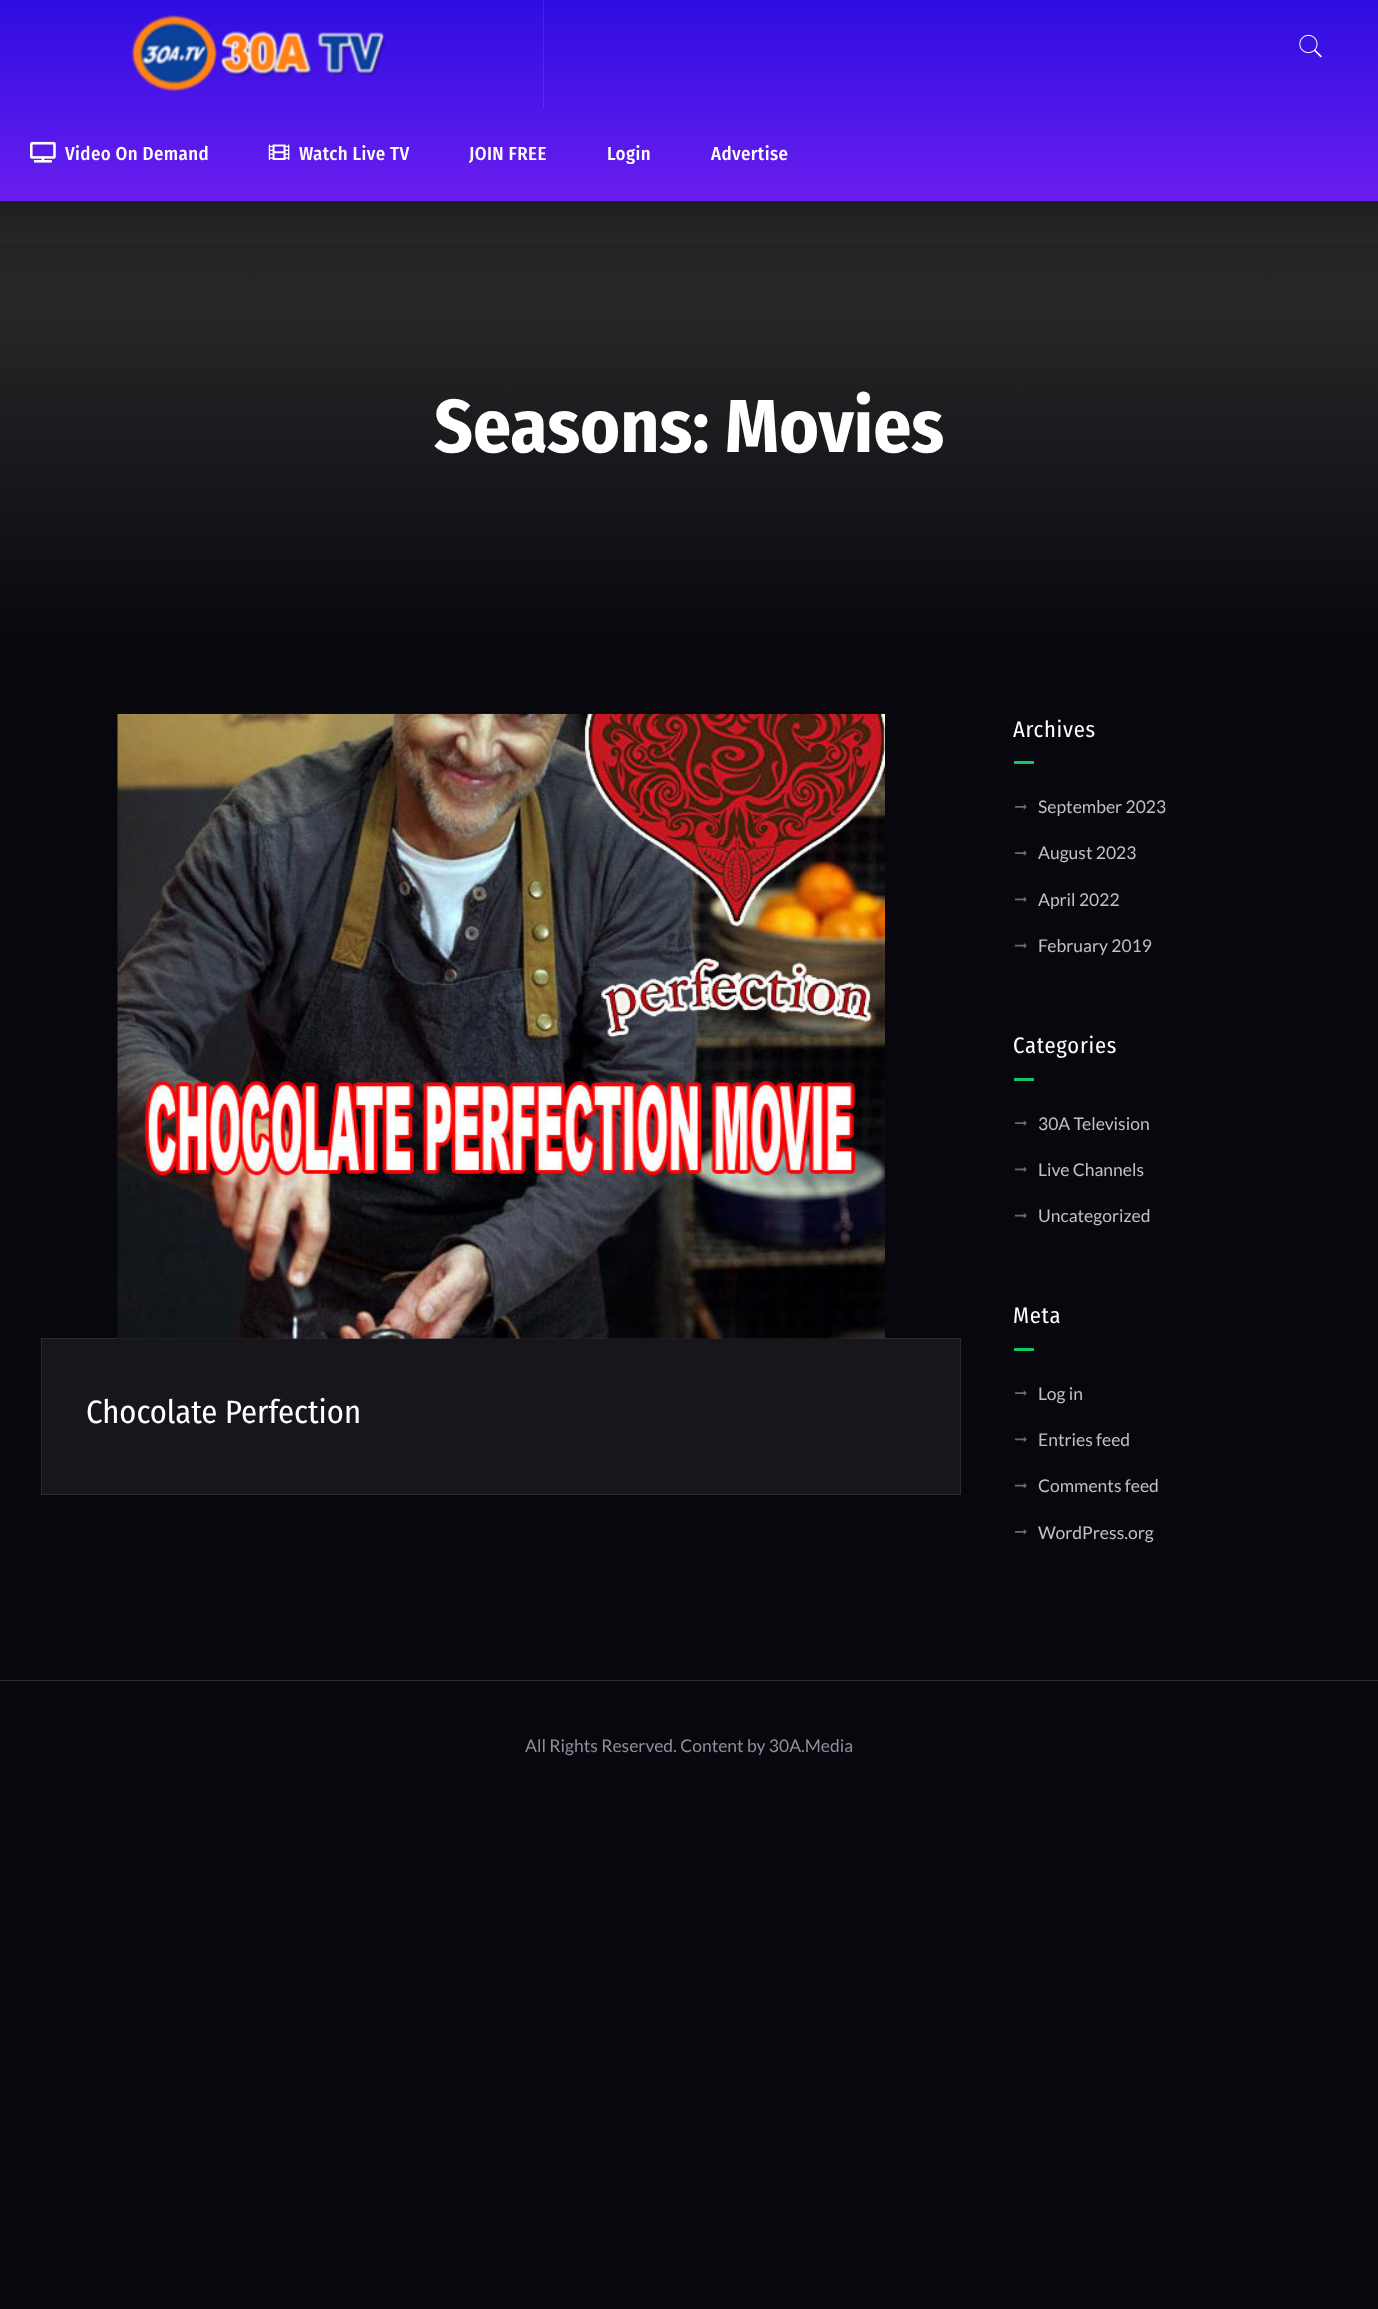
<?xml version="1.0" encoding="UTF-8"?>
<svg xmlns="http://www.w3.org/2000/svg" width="1378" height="2309">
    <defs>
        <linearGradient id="g1" gradientUnits="userSpaceOnUse" x1="689" y1="0" x2="689" y2="201"><stop offset="0" stop-color="#2E0DE1"/><stop offset="1" stop-color="#6A1EEF"/></linearGradient>
        <linearGradient id="g2" gradientUnits="userSpaceOnUse" x1="689" y1="0" x2="689" y2="201"><stop offset="0" stop-color="#4325E4"/><stop offset="1" stop-color="#7935F1"/></linearGradient>
        <linearGradient id="g3" gradientUnits="userSpaceOnUse" x1="689" y1="201" x2="689" y2="301"><stop offset="0" stop-color="#1F1F1F"/><stop offset="1" stop-color="#303030"/></linearGradient>
        <linearGradient id="g4" gradientUnits="userSpaceOnUse" x1="689" y1="201" x2="689" y2="651"><stop offset="0" stop-color="#08070E" stop-opacity="0"/><stop offset="1" stop-color="#08070E"/></linearGradient>
    </defs>
    <rect width="100%" height="100%" fill="#08070E"/>
    <rect x="0" y="0" width="1378" height="201" fill="url(#g1)"/>
    <rect x="543" y="0" width="1" height="108" fill="url(#g2)"/>
    <image x="131" y="15" width="255" height="76" href="img_01.png"/>
    <image x="1299" y="34" width="23" height="24" href="img_02.png"/>
    <image x="30" y="141" width="26" height="22" href="img_03.png"/>
    <text x="65" y="160" font-family="Fira Sans Condensed" font-size="18.75" font-weight="500" letter-spacing="0.4" fill="#FFFFFF">Video On Demand</text>
    <image x="268" y="144" width="22" height="16" href="img_04.png"/>
    <text x="299" y="160" font-family="Fira Sans Condensed" font-size="18.75" font-weight="500" letter-spacing="0.4" fill="#FFFFFF">Watch Live TV</text>
    <text x="469" y="160" font-family="Fira Sans Condensed" font-size="18.75" font-weight="500" letter-spacing="0.4" fill="#FFFFFF">JOIN FREE</text>
    <text x="607" y="160" font-family="Fira Sans Condensed" font-size="18.75" font-weight="500" letter-spacing="0.4" fill="#FFFFFF">Login</text>
    <text x="711" y="160" font-family="Fira Sans Condensed" font-size="18.75" font-weight="500" letter-spacing="0.4" fill="#FFFFFF">Advertise</text>
    <rect x="0" y="201" width="1378" height="100" fill="url(#g3)"/>
    <rect x="0" y="301" width="1378" height="347" fill="#303030"/>
    <rect x="0" y="244" width="1378" height="404" fill="url(#g4)"/>
    <text x="434" y="452" font-family="Fira Sans Condensed" font-size="75" font-weight="700" fill="#FFFFFF">Seasons: Movies</text>
    <rect x="41.5" y="1338.5" width="919" height="156" fill="#17161C" stroke="#2C2B30"/>
    <image x="117" y="713" width="768" height="626" href="img_05.png"/>
    <text x="86" y="1423" font-family="Fira Sans Condensed" font-size="32.5" fill="#FFFFFF">Chocolate Perfection</text>
    <text x="1013" y="737" font-family="Fira Sans Condensed" font-size="22.5" letter-spacing="0.75" fill="#FFFFFF">Archives</text>
    <rect x="1014" y="761" width="20" height="3" fill="#15C562"/>
    <image x="1015" y="804" width="12" height="6" href="img_06.png"/>
    <text x="1038" y="813" font-family="Lato" font-size="17.5" fill="#C1C1C3">September 2023</text>
    <image x="1015" y="850" width="12" height="6" href="img_07.png"/>
    <text x="1038" y="859" font-family="Lato" font-size="17.5" fill="#C1C1C3">August 2023</text>
    <image x="1015" y="897" width="12" height="5" href="img_08.png"/>
    <text x="1038" y="906" font-family="Lato" font-size="17.5" fill="#C1C1C3">April 2022</text>
    <image x="1015" y="943" width="12" height="5" href="img_09.png"/>
    <text x="1038" y="952" font-family="Lato" font-size="17.5" fill="#C1C1C3">February 2019</text>
    <text x="1013" y="1053" font-family="Fira Sans Condensed" font-size="22.5" letter-spacing="0.75" fill="#FFFFFF">Categories</text>
    <rect x="1014" y="1078" width="20" height="3" fill="#15C562"/>
    <image x="1015" y="1120" width="12" height="6" href="img_07.png"/>
    <text x="1038" y="1130" font-family="Lato" font-size="17.5" fill="#C1C1C3">30A Television</text>
    <image x="1015" y="1167" width="12" height="5" href="img_08.png"/>
    <text x="1038" y="1176" font-family="Lato" font-size="17.5" fill="#C1C1C3">Live Channels</text>
    <image x="1015" y="1213" width="12" height="5" href="img_09.png"/>
    <text x="1038" y="1222" font-family="Lato" font-size="17.5" fill="#C1C1C3">Uncategorized</text>
    <text x="1013" y="1323" font-family="Fira Sans Condensed" font-size="22.5" letter-spacing="0.75" fill="#FFFFFF">Meta</text>
    <rect x="1014" y="1348" width="20" height="3" fill="#15C562"/>
    <image x="1015" y="1390" width="12" height="6" href="img_07.png"/>
    <text x="1038" y="1400" font-family="Lato" font-size="17.5" fill="#C1C1C3">Log in</text>
    <image x="1015" y="1437" width="12" height="5" href="img_08.png"/>
    <text x="1038" y="1446" font-family="Lato" font-size="17.5" fill="#C1C1C3">Entries feed</text>
    <image x="1015" y="1483" width="12" height="5" href="img_09.png"/>
    <text x="1038" y="1492" font-family="Lato" font-size="17.5" fill="#C1C1C3">Comments feed</text>
    <image x="1015" y="1529" width="12" height="6" href="img_06.png"/>
    <text x="1038" y="1539" font-family="Lato" font-size="17.5" fill="#C1C1C3">WordPress.org</text>
    <rect x="0" y="1680" width="1378" height="1" fill="#2D2C32"/>
    <text x="525" y="1752" font-family="Lato" font-size="17.5" fill="#8E9099">All Rights Reserved. Content by 30A.Media</text>
</svg>
